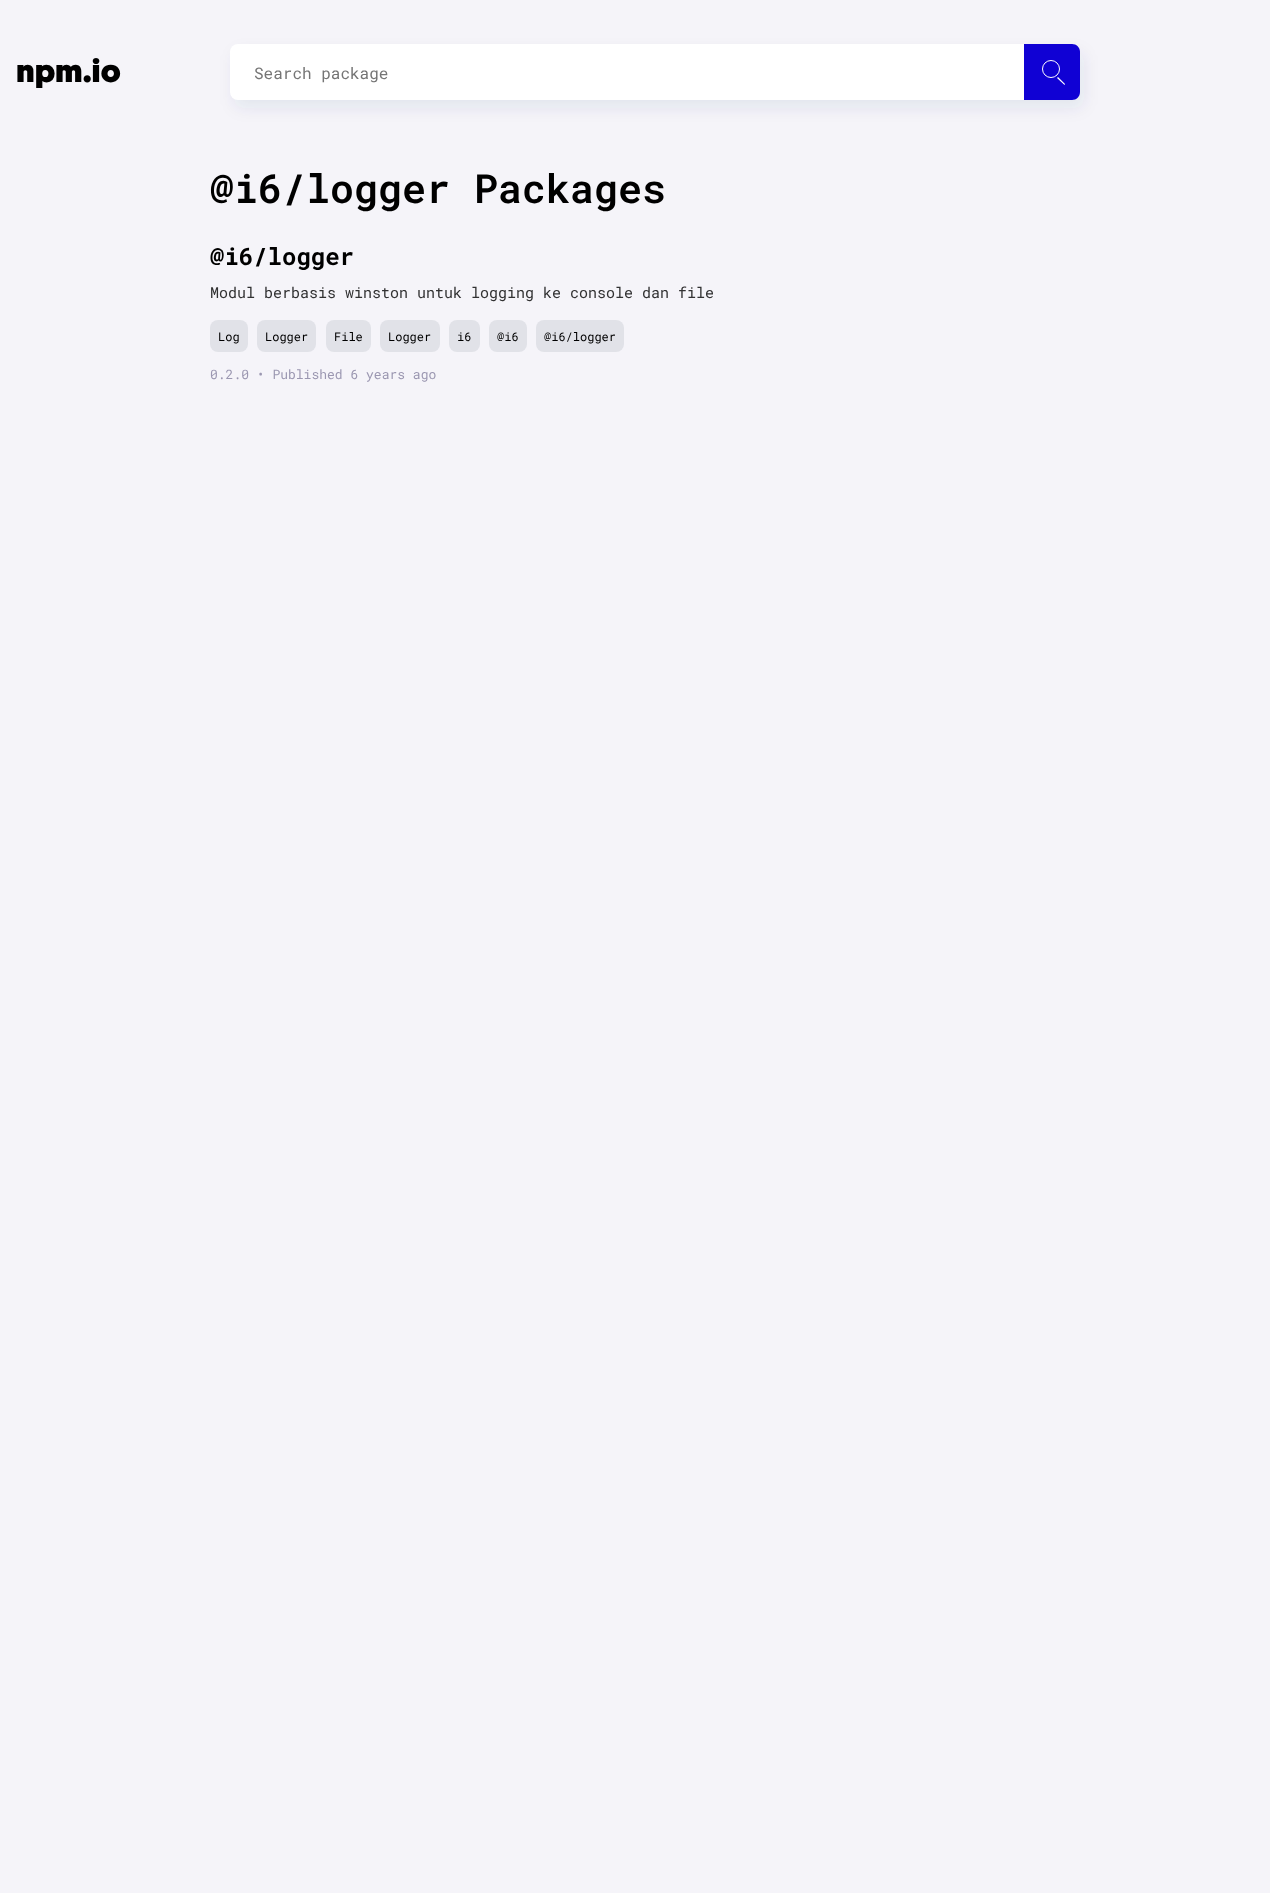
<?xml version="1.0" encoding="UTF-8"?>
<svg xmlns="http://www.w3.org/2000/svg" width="1270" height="1893">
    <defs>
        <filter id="blur1" x="-50%" y="-200%" width="200%" height="500%"><feGaussianBlur stdDeviation="8"/></filter>
    </defs>
    <rect width="100%" height="100%" fill="#F5F4F9"/>
    <text x="16" y="82" font-family="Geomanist" font-size="32" font-weight="900" fill="#000000">npm.io</text>
    <rect x="234" y="52" width="850" height="56" rx="8" fill="#00306F" fill-opacity="0.08" filter="url(#blur1)"/>
    <rect x="230" y="44" width="850" height="56" rx="8" fill="#FFFFFF"/>
    <text x="254" y="79" font-family="Roboto Mono" font-size="16" fill="#757575">Search package</text>
    <path d="M 1024 44 H 1072 C 1076.5 44 1080 47.5 1080 52 V 92 C 1080 96.5 1076.5 100 1072 100 H 1024 Z" fill="#1001D4"/>
    <circle cx="1051" cy="69" r="8.5" fill="none" stroke="#FFFFFF"/>
    <path d="M 1057 78 L 1058 77 L 1065 84 L 1064.5 85 Z" fill="#FFFFFF"/>
    <text x="210" y="203" font-family="Roboto Mono" font-size="40" font-weight="600" fill="#000000">@i6/logger Packages</text>
    <text x="210" y="265" font-family="Roboto Mono" font-size="24" font-weight="700" fill="#000000">@i6/logger</text>
    <text x="210" y="298" font-family="Roboto Mono" font-size="15" fill="#313132">Modul berbasis winston untuk logging ke console dan file</text>
    <rect x="210" y="320" width="38" height="32" rx="8" fill="#E1E2E8"/>
    <text x="218" y="341" font-family="Roboto Mono" font-size="12" fill="#000000">Log</text>
    <rect x="257" y="320" width="59" height="32" rx="8" fill="#E1E2E8"/>
    <text x="265" y="341" font-family="Roboto Mono" font-size="12" fill="#000000">Logger</text>
    <rect x="326" y="320" width="45" height="32" rx="8" fill="#E1E2E8"/>
    <text x="334" y="341" font-family="Roboto Mono" font-size="12" fill="#000000">File</text>
    <rect x="380" y="320" width="60" height="32" rx="8" fill="#E1E2E8"/>
    <text x="388" y="341" font-family="Roboto Mono" font-size="12" fill="#000000">Logger</text>
    <rect x="449" y="320" width="31" height="32" rx="8" fill="#E1E2E8"/>
    <text x="457" y="341" font-family="Roboto Mono" font-size="12" fill="#000000">i6</text>
    <rect x="489" y="320" width="38" height="32" rx="8" fill="#E1E2E8"/>
    <text x="497" y="341" font-family="Roboto Mono" font-size="12" fill="#000000">@i6</text>
    <rect x="536" y="320" width="88" height="32" rx="8" fill="#E1E2E8"/>
    <text x="544" y="341" font-family="Roboto Mono" font-size="12" fill="#000000">@i6/logger</text>
    <text x="210" y="379" font-family="Roboto Mono" font-size="13" fill="#9B97B1">0.2.0 • Published 6 years ago</text>
</svg>
